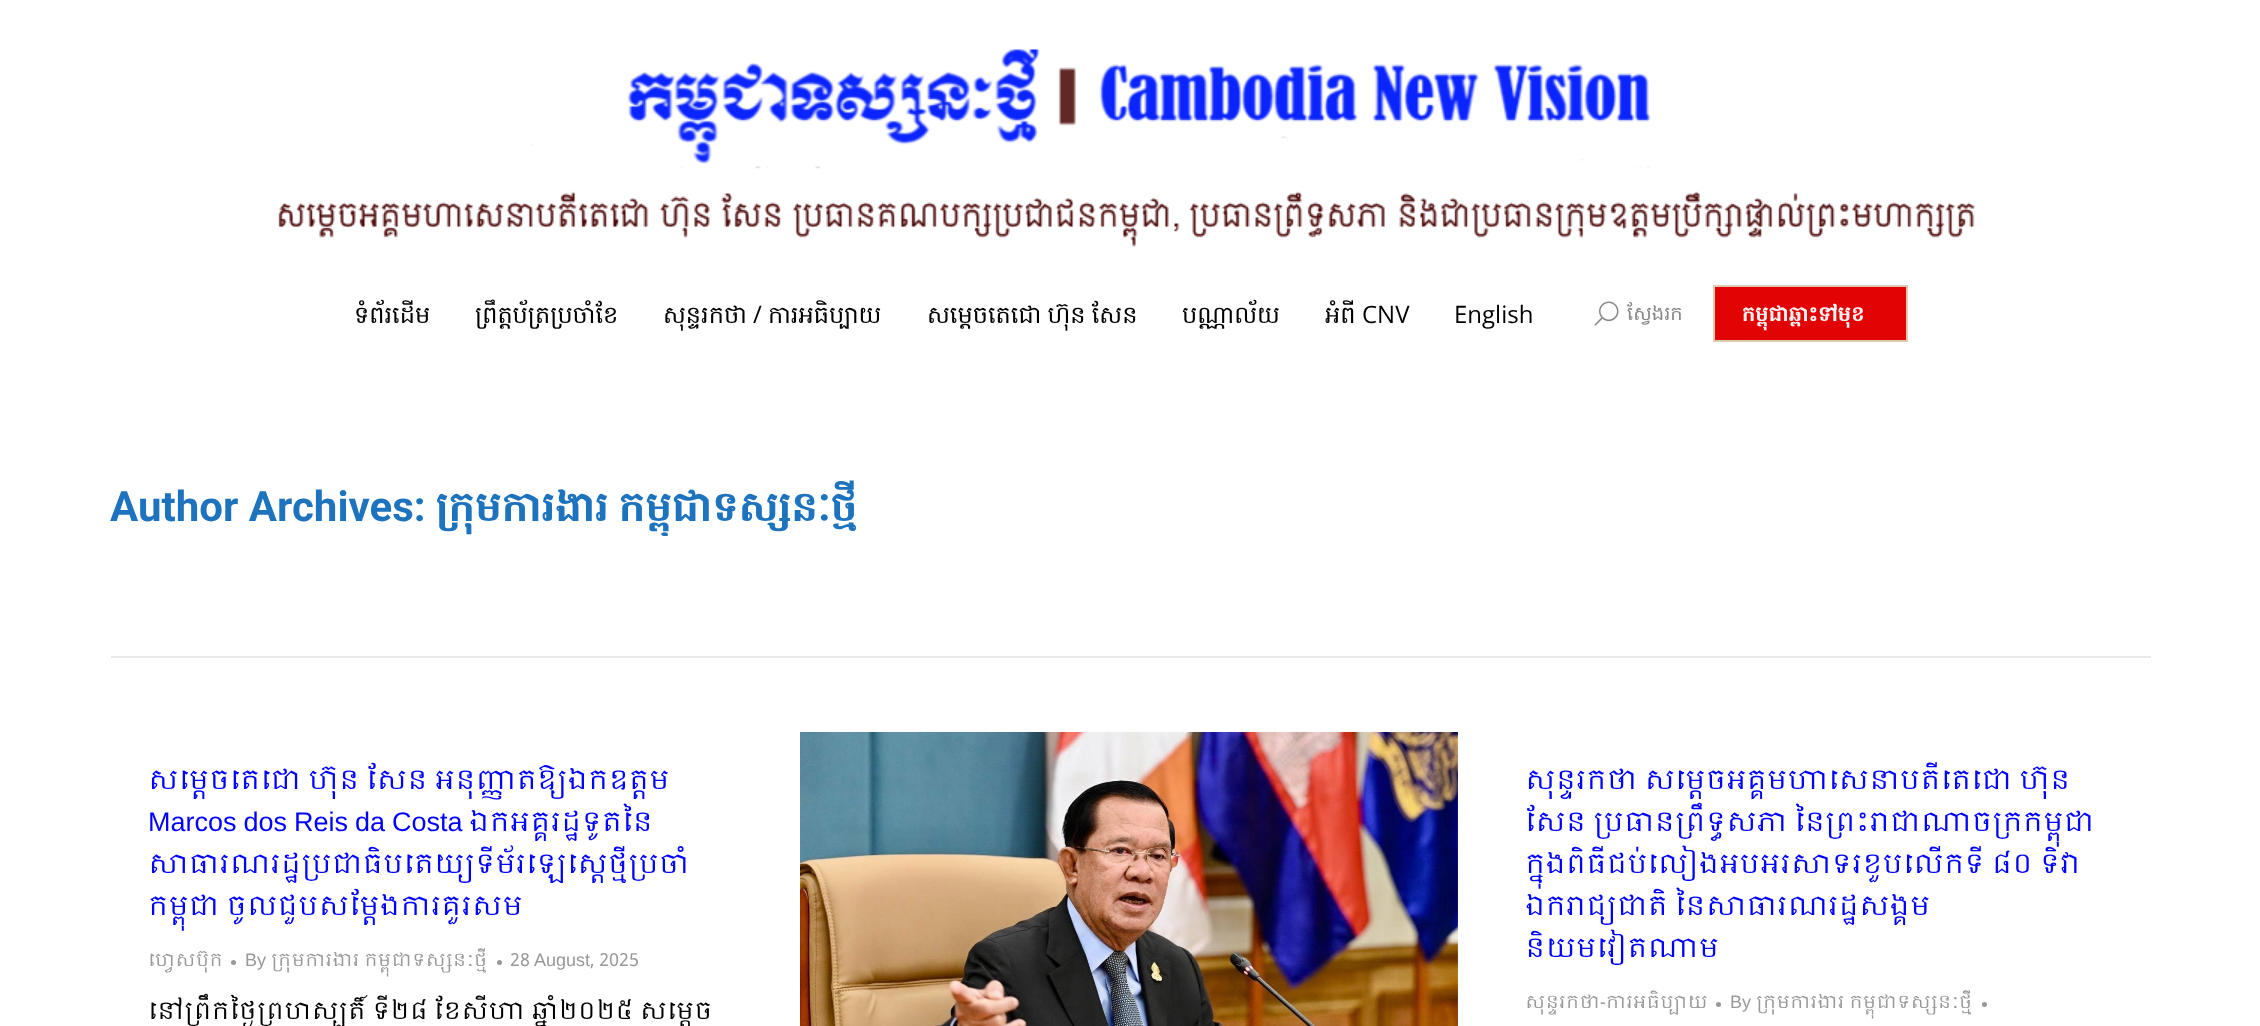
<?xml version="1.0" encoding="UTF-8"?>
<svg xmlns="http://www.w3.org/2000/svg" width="2260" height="1026">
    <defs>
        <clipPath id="clip1"><rect x="111" y="479" width="747" height="57"/></clipPath>
    </defs>
    <rect width="100%" height="100%" fill="#FFFFFF"/>
    <image x="278" y="49" width="1698" height="198" href="img_01.png"/>
    <text x="354" y="323" font-family="Hanuman" font-size="24" fill="#000000">ទំព័រដើម</text>
    <text x="475" y="323" font-family="Hanuman" font-size="24" fill="#000000">ព្រឹត្តប័ត្រប្រចាំខែ</text>
    <text x="663" y="323" font-family="Hanuman" font-size="24" fill="#000000">សុន្ទរកថា</text>
    <text x="753" y="323" font-family="Open Sans" font-size="24" fill="#000000">/</text>
    <text x="768" y="323" font-family="Hanuman" font-size="24" fill="#000000">ការអធិប្បាយ</text>
    <text x="927" y="323" word-spacing="-2" font-family="Hanuman" font-size="24" fill="#000000">សម្តេចតេជោ ហ៊ុន សែន</text>
    <text x="1182" y="323" font-family="Hanuman" font-size="24" fill="#000000">បណ្ណាល័យ</text>
    <text x="1325" y="323" font-family="Hanuman" font-size="24" fill="#000000">អំពី</text>
    <text x="1362" y="323" font-family="Open Sans" font-size="24" fill="#000000">CNV</text>
    <text x="1454" y="323" font-family="Open Sans" font-size="24" fill="#000000">English</text>
    <image x="1594" y="301" width="25" height="25" href="img_02.png"/>
    <text x="1627" y="320" font-family="Hanuman" font-size="19.5" fill="#888888">ស្វែងរក</text>
    <rect x="1714" y="286" width="193" height="55" fill="#E20404" stroke="#E0CAAF" stroke-width="2"/>
    <text x="1742" y="321" font-family="Hanuman" font-size="21" font-weight="700" fill="#F2F2F2">កម្ពុជាឆ្ពោះទៅមុខ</text>
    <text x="110" y="521" font-family="Roboto" font-size="42" font-weight="700" fill="#1E73BE">Author Archives:</text>
    <g clip-path="url(#clip1)">
        <text x="436" y="521" word-spacing="-4" font-family="Hanuman" font-size="42" font-weight="700" fill="#1E73BE">ក្រុមការងារ កម្ពុជាទស្សនៈថ្មី</text>
    </g>
    <rect x="111" y="656" width="2040" height="2" fill="#E9E9E9"/>
    <text x="148" y="789" font-family="Khmer" font-size="27" fill="#0000FF">សម្ដេចតេជោ ហ៊ុន សែន អនុញ្ញាតឱ្យឯកឧត្តម</text>
    <text x="148" y="831" word-spacing="-0.5" font-family="Liberation Sans" font-size="27" fill="#0000FF">Marcos dos Reis da Costa</text>
    <text x="469" y="831" font-family="Khmer" font-size="27" fill="#0000FF">ឯកអគ្គរដ្ឋទូតនៃ</text>
    <text font-family="Khmer" font-size="27" fill="#0000FF">
        <tspan x="148" y="873">សាធារណរដ្ឋប្រជាធិបតេយ្យទីម័រឡេស្តេថ្មីប្រចាំ</tspan>
        <tspan x="148" y="915">កម្ពុជា ចូលជួបសម្តែងការគួរសម</tspan>
    </text>
    <text x="148" y="966" font-family="Khmer" font-size="18" fill="#999999">ហ្វេសប៊ុក</text>
    <circle cx="233.5" cy="962.5" r="2.5" fill="#999999"/>
    <text x="245" y="966" font-family="Liberation Sans" font-size="18" fill="#999999">By</text>
    <text x="271" y="966" font-family="Khmer" font-size="18" fill="#999999">ក្រុមការងារ កម្ពុជាទស្សនៈថ្មី</text>
    <circle cx="499.5" cy="962.5" r="2.5" fill="#999999"/>
    <text x="510" y="966" font-family="Khmer" font-size="18" fill="#999999">28</text>
    <text x="534" y="966" font-family="Liberation Sans" font-size="18" fill="#999999">August</text>
    <text x="590" y="966" font-family="Khmer" font-size="18" fill="#999999">, 2025</text>
    <text x="148" y="1019" font-family="Khmer" font-size="24" fill="#000000">នៅព្រឹកថ្ងៃព្រហស្បតិ៍ ទី២៨ ខែសីហា ឆ្នាំ២០២៥ សម្ដេច</text>
    <image x="800" y="732" width="658" height="294" href="img_03.png"/>
    <text font-family="Khmer" font-size="27" fill="#0000FF">
        <tspan x="1525" y="789">សុន្ទរកថា សម្តេចអគ្គមហាសេនាបតីតេជោ ហ៊ុន</tspan>
        <tspan x="1525" y="831">សែន ប្រធានព្រឹទ្ធសភា នៃព្រះរាជាណាចក្រកម្ពុជា</tspan>
        <tspan x="1525" y="873">ក្នុងពិធីជប់លៀងអបអរសាទរខួបលើកទី ៨០ ទិវា</tspan>
        <tspan x="1525" y="915">ឯករាជ្យជាតិ នៃសាធារណរដ្ឋសង្គម</tspan>
        <tspan x="1525" y="957">និយមវៀតណាម</tspan>
    </text>
    <text x="1525" y="1008" font-family="Khmer" font-size="18" fill="#999999">សុន្ទរកថា-ការអធិប្បាយ</text>
    <circle cx="1718.5" cy="1004.5" r="2.5" fill="#999999"/>
    <text x="1730" y="1008" font-family="Liberation Sans" font-size="18" fill="#999999">By</text>
    <text x="1756" y="1008" font-family="Khmer" font-size="18" fill="#999999">ក្រុមការងារ កម្ពុជាទស្សនៈថ្មី</text>
    <circle cx="1984.5" cy="1004.5" r="2.5" fill="#999999"/>
</svg>
